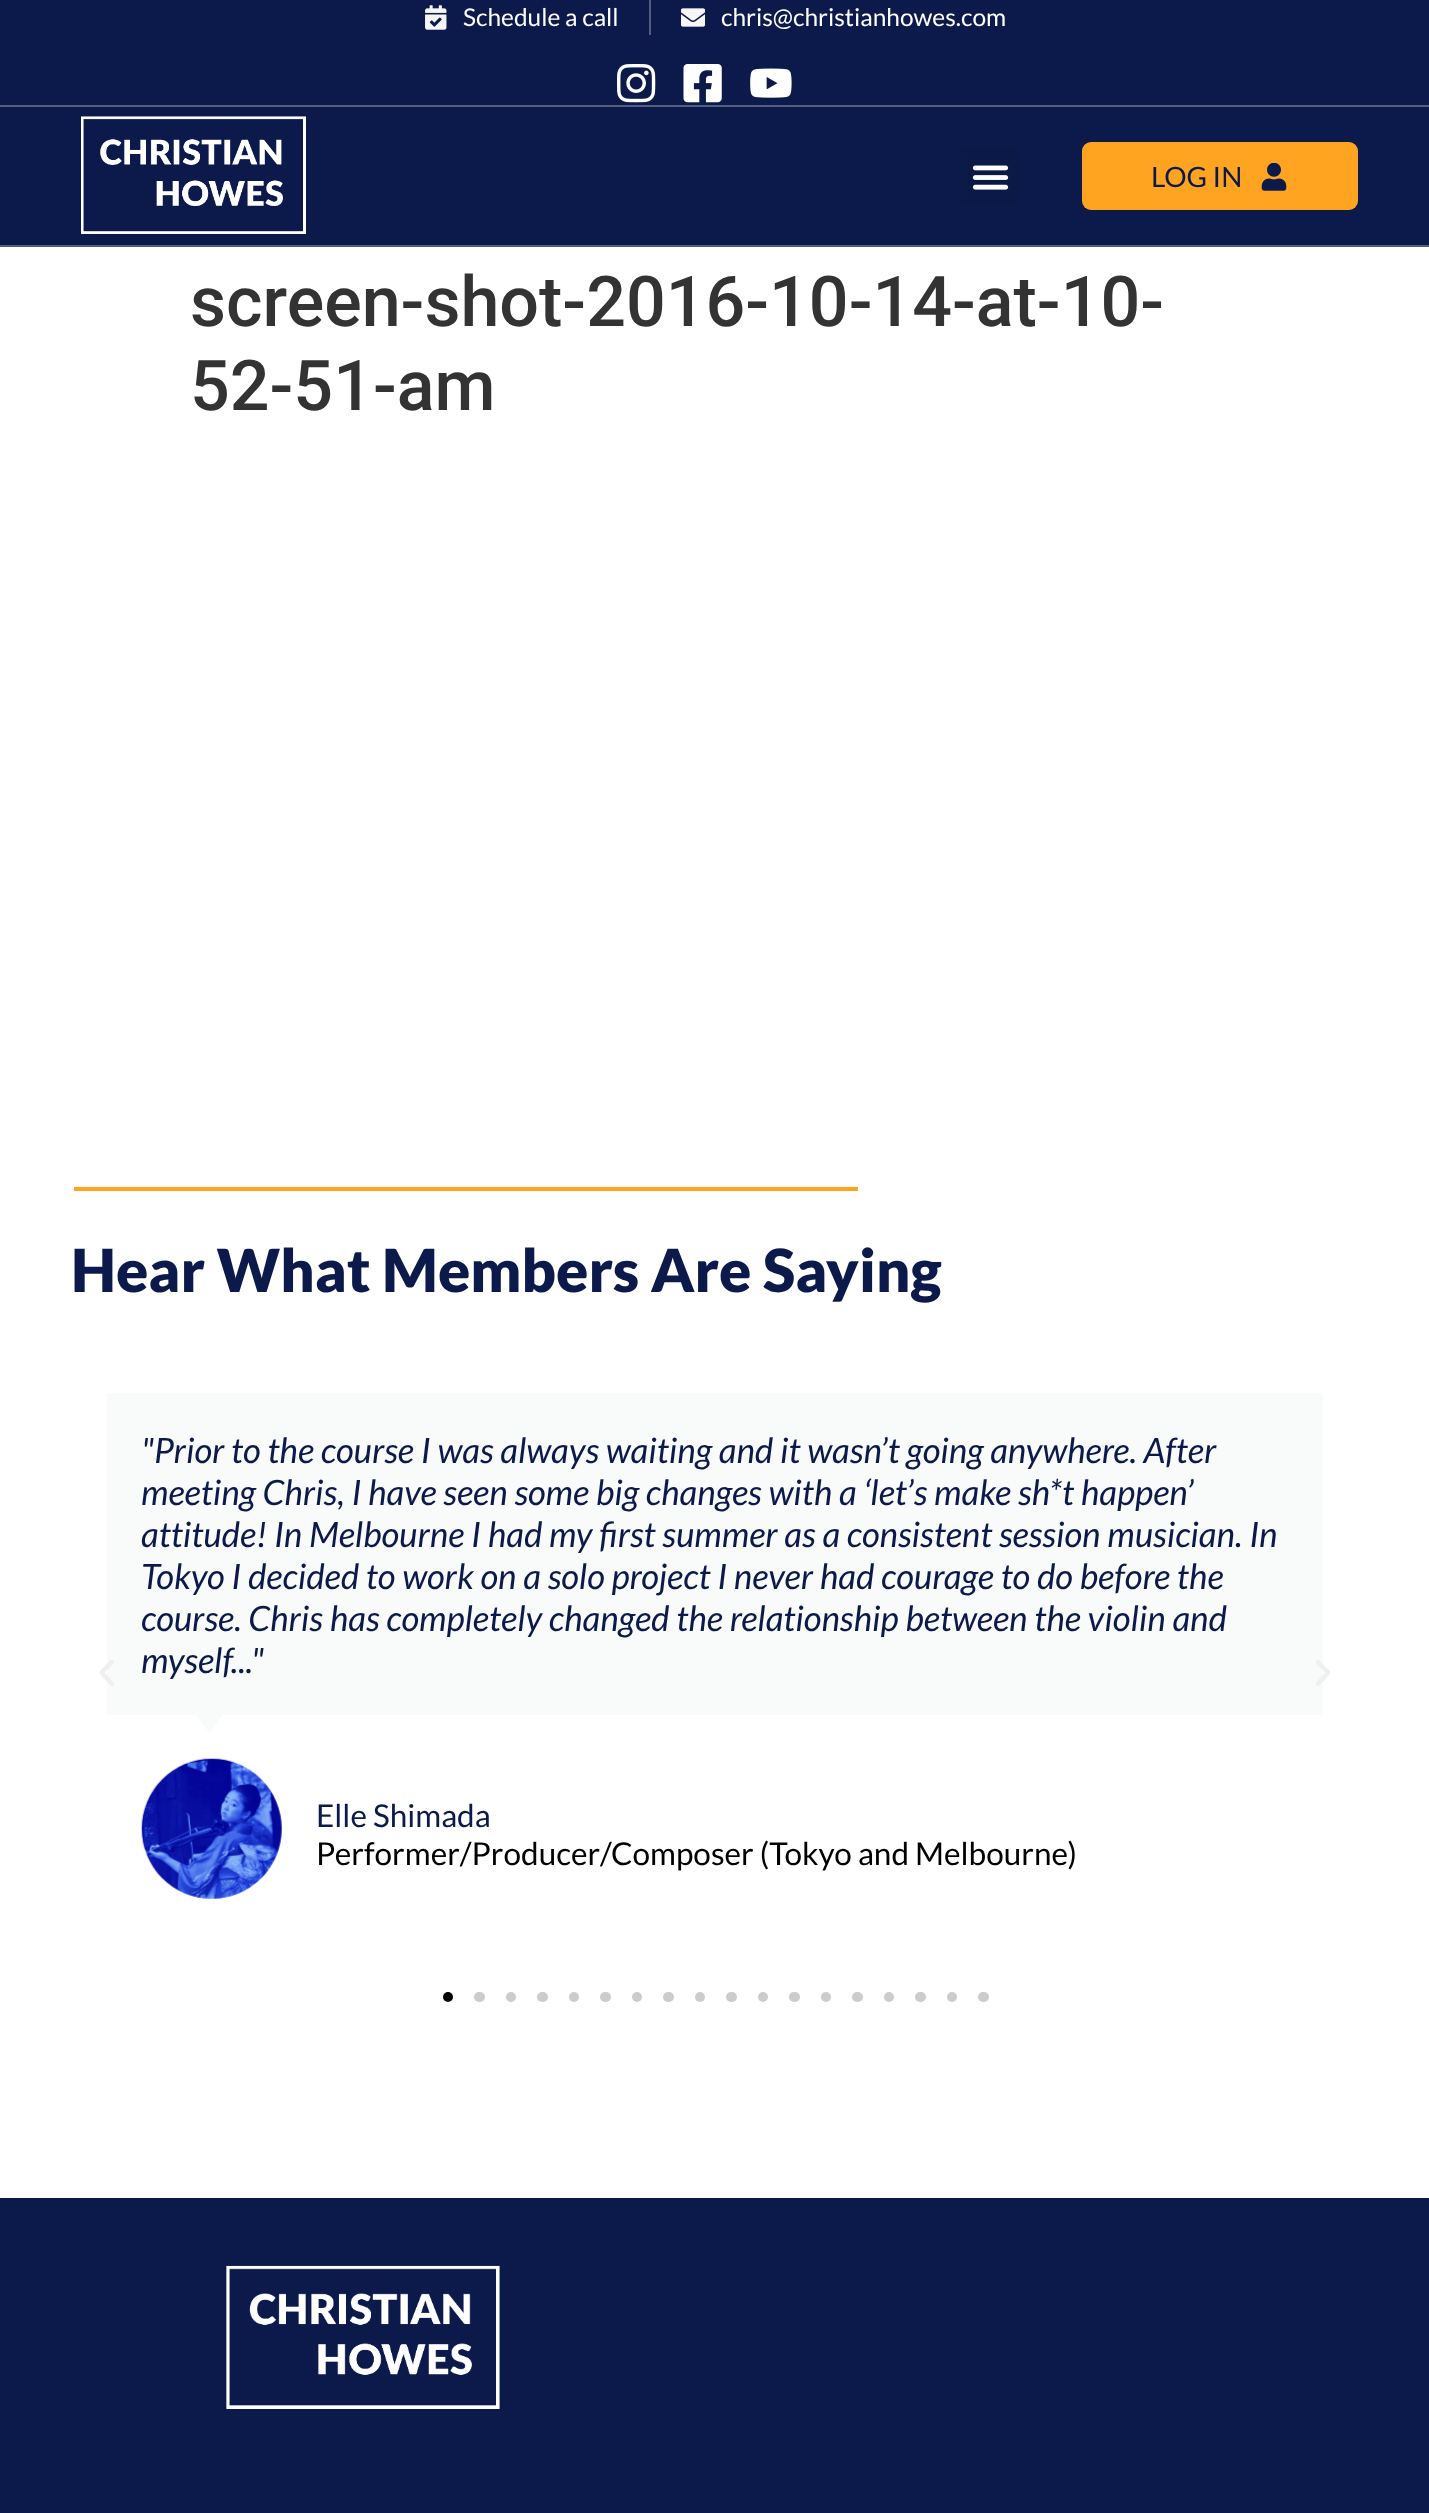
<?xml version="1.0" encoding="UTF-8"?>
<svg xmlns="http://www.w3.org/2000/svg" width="1429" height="2513">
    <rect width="100%" height="100%" fill="#FFFFFF"/>
    <rect x="0" y="0" width="1429" height="105" fill="#0B1A4A"/>
    <rect x="0" y="105" width="1429" height="2" fill="#525D7F"/>
    <image x="425" y="5" width="22" height="25" href="img_01.png"/>
    <text x="463" y="26" font-family="Lato" font-size="24.5" fill="#FFFFFF">Schedule a call</text>
    <rect x="649" y="0" width="2" height="35" fill="#525D7F"/>
    <image x="681" y="8" width="24" height="19" href="img_02.png"/>
    <text x="721" y="26" font-family="Lato" font-size="24.5" fill="#FFFFFF">chris@christianhowes.com</text>
    <image x="617" y="64" width="39" height="39" href="img_03.png"/>
    <image x="683" y="64" width="39" height="39" href="img_04.png"/>
    <image x="750" y="68" width="42" height="30" href="img_05.png"/>
    <rect x="0" y="107" width="1429" height="138" fill="#0B1A4A"/>
    <rect x="0" y="245" width="1429" height="2" fill="#525D7F"/>
    <image x="81" y="116" width="225" height="118" href="img_06.png"/>
    <rect x="961" y="147" width="58" height="58" rx="5" fill="#0A1946"/>
    <image x="972" y="165" width="37" height="25" href="img_07.png"/>
    <rect x="1082" y="142" width="276" height="68" rx="9" fill="#FFA421"/>
    <text x="1151" y="187" font-family="Lato" font-size="28" fill="#0B1A4A">LOG IN</text>
    <image x="1261" y="163" width="26" height="28" href="img_08.png"/>
    <text font-family="Roboto" font-size="70" font-weight="500" fill="#333333">
        <tspan x="190" y="326">screen-shot-2016-10-14-at-10-</tspan>
        <tspan x="190" y="410">52-51-am</tspan>
    </text>
    <rect x="74" y="1187" width="784" height="4" fill="#FFA421"/>
    <text x="71" y="1292" font-family="Lato" font-size="59.5" font-weight="900" fill="#0B1A4A">Hear What Members Are Saying</text>
    <rect x="107" y="1393" width="1216" height="322" fill="#F9FAFA"/>
    <image x="99" y="1660" width="15" height="26" href="img_09.png"/>
    <text font-family="Lato" font-size="35" font-style="italic" fill="#0B1A4A">
        <tspan x="141" y="1463">"Prior to the course I was always waiting and it wasn’t going anywhere. After</tspan>
        <tspan x="141" y="1505">meeting Chris, I have seen some big changes with a ‘let’s make sh*t happen’</tspan>
        <tspan x="141" y="1547">attitude! In Melbourne I had my first summer as a consistent session musician. In</tspan>
        <tspan x="141" y="1589">Tokyo I decided to work on a solo project I never had courage to do before the</tspan>
        <tspan x="141" y="1631">course. Chris has completely changed the relationship between the violin and</tspan>
        <tspan x="141" y="1673">myself..."</tspan>
    </text>
    <path d="M 209.5 1698 L 222.5 1715.5 L 209.5 1733 L 196.5 1715.5 Z" fill="#F9FAFA"/>
    <image x="141" y="1758" width="141" height="141" href="img_10.png"/>
    <text x="316" y="1827" font-family="Lato" font-size="31.5" fill="#0B1A4A">Elle Shimada</text>
    <text x="316" y="1865" font-family="Lato" font-size="31.5" fill="#000000">Performer/Producer/Composer (Tokyo and Melbourne)</text>
    <image x="1316" y="1660" width="15" height="26" href="img_11.png"/>
    <circle cx="448" cy="1997" r="5" fill="#000000"/>
    <rect x="474" y="1992" width="11" height="10" rx="5" fill="#CCCCCC"/>
    <circle cx="511" cy="1997" r="5" fill="#CCCCCC"/>
    <rect x="537" y="1992" width="11" height="10" rx="5" fill="#CCCCCC"/>
    <circle cx="574" cy="1997" r="5" fill="#CCCCCC"/>
    <rect x="600" y="1992" width="11" height="10" rx="5" fill="#CCCCCC"/>
    <circle cx="637" cy="1997" r="5" fill="#CCCCCC"/>
    <rect x="663" y="1992" width="11" height="10" rx="5" fill="#CCCCCC"/>
    <circle cx="700" cy="1997" r="5" fill="#CCCCCC"/>
    <rect x="726" y="1992" width="11" height="10" rx="5" fill="#CCCCCC"/>
    <circle cx="763" cy="1997" r="5" fill="#CCCCCC"/>
    <rect x="789" y="1992" width="11" height="10" rx="5" fill="#CCCCCC"/>
    <circle cx="826" cy="1997" r="5" fill="#CCCCCC"/>
    <rect x="852" y="1992" width="11" height="10" rx="5" fill="#CCCCCC"/>
    <circle cx="889" cy="1997" r="5" fill="#CCCCCC"/>
    <rect x="915" y="1992" width="11" height="10" rx="5" fill="#CCCCCC"/>
    <circle cx="952" cy="1997" r="5" fill="#CCCCCC"/>
    <rect x="978" y="1992" width="11" height="10" rx="5" fill="#CCCCCC"/>
    <rect x="0" y="2198" width="1429" height="315" fill="#0B1A4A"/>
    <image x="226" y="2265" width="274" height="144" href="img_12.png"/>
</svg>
